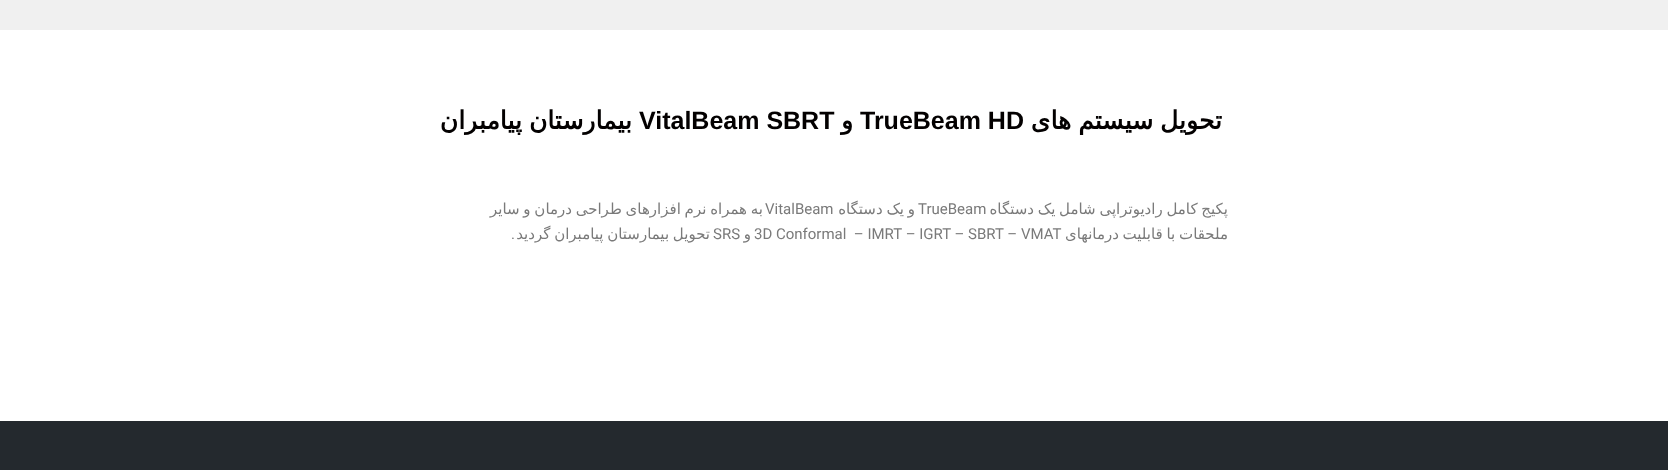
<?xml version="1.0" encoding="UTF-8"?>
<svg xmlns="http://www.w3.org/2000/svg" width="1668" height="470">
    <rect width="100%" height="100%" fill="#FFFFFF"/>
    <rect x="0" y="0" width="1668" height="30" fill="#F0F0F0"/>
    <text x="1222" y="129" word-spacing="-1" font-family="DejaVu Sans" font-size="25" font-weight="700" direction="rtl" fill="#030000">تحویل سیستم های</text>
    <text x="860" y="129" font-family="Liberation Sans" font-size="25" font-weight="700" fill="#030000">TrueBeam HD</text>
    <text x="853" y="129" font-family="DejaVu Sans" font-size="25" font-weight="700" direction="rtl" fill="#030000">و</text>
    <text x="639" y="129" font-family="Liberation Sans" font-size="25" font-weight="700" fill="#030000">VitalBeam SBRT</text>
    <text x="632" y="129" word-spacing="-1" font-family="DejaVu Sans" font-size="25" font-weight="700" direction="rtl" fill="#030000">بیمارستان پیامبران</text>
    <text x="1228" y="214" word-spacing="-1" font-family="DejaVu Sans" font-size="15" direction="rtl" fill="#7A7A7A">پکیج کامل رادیوتراپی شامل یک دستگاه</text>
    <text x="918" y="214" font-family="Roboto" font-size="15" fill="#7A7A7A">TrueBeam</text>
    <text x="915" y="214" word-spacing="-1" font-family="DejaVu Sans" font-size="15" direction="rtl" fill="#7A7A7A">و یک دستگاه</text>
    <text x="765" y="214" font-family="Roboto" font-size="15" fill="#7A7A7A">VitalBeam</text>
    <text x="763" y="214" word-spacing="-1" font-family="DejaVu Sans" font-size="15" direction="rtl" fill="#7A7A7A">به همراه نرم افزارهای طراحی درمان و سایر</text>
    <text x="1228" y="239" word-spacing="-1" font-family="DejaVu Sans" font-size="15" direction="rtl" fill="#7A7A7A">ملحقات با قابلیت درمانهای</text>
    <text x="754" y="239" font-family="Roboto" font-size="15" fill="#7A7A7A" xml:space="preserve">3D Conformal  – IMRT – IGRT – SBRT – VMAT</text>
    <text x="751" y="239" font-family="DejaVu Sans" font-size="15" direction="rtl" fill="#7A7A7A">و</text>
    <text x="713" y="239" font-family="Roboto" font-size="15" fill="#7A7A7A">SRS</text>
    <text x="710" y="239" word-spacing="-1" font-family="DejaVu Sans" font-size="15" direction="rtl" fill="#7A7A7A">تحویل بیمارستان پیامبران گردید</text>
    <text x="515" y="239" font-family="Roboto" font-size="15" direction="rtl" fill="#7A7A7A">.</text>
    <rect x="0" y="421" width="1668" height="49" fill="#24292E"/>
</svg>
